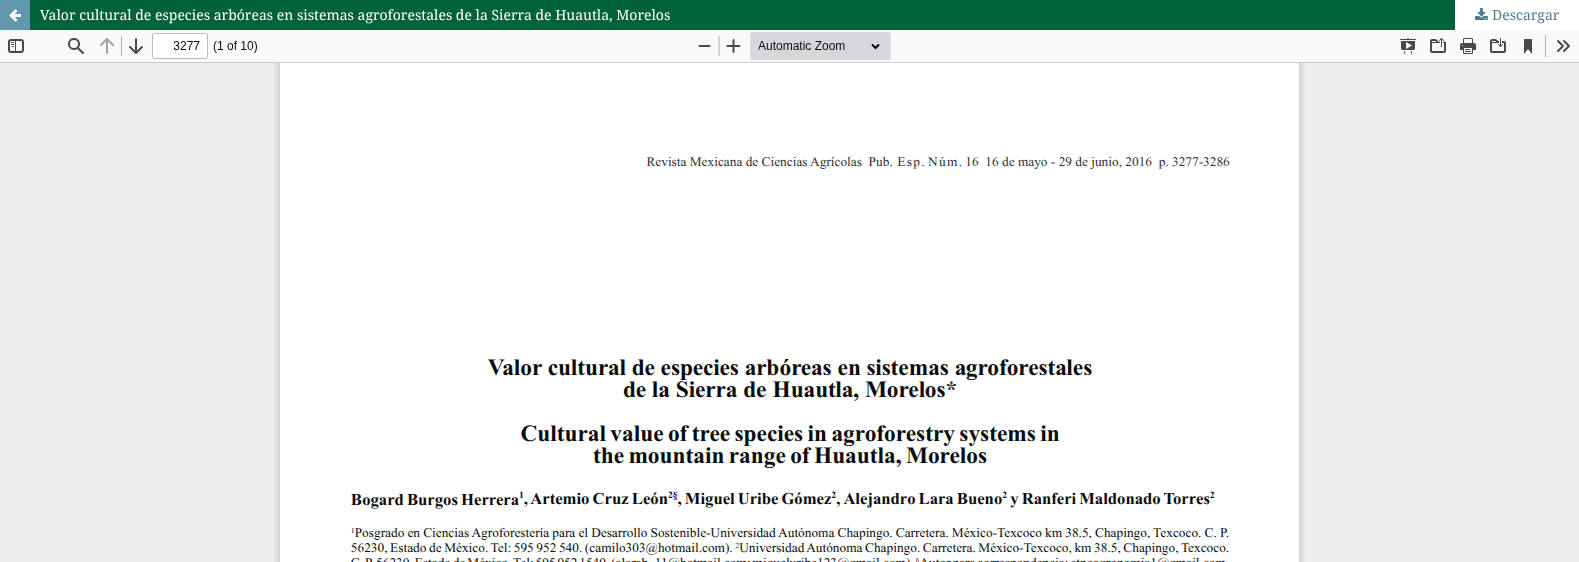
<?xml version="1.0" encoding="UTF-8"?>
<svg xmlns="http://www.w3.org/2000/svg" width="1579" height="562">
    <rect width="100%" height="100%" fill="#FFFFFF"/>
    <rect x="30" y="0" width="1425" height="30" fill="#00623C"/>
    <rect x="0" y="0" width="30" height="30" fill="#6298AE"/>
    <image x="9" y="9" width="12" height="13" href="img_01.png"/>
    <text x="40" y="20" font-family="Noto Serif" font-size="14" fill="#FFFFFF">Valor cultural de especies arbóreas en sistemas agroforestales de la Sierra de Huautla, Morelos</text>
    <image x="1475" y="8" width="13" height="12" href="img_02.png"/>
    <text x="1492" y="20" font-family="Noto Serif" font-size="14" fill="#4B7D92">Descargar</text>
    <image x="0" y="30" width="1579" height="532" href="img_03.png"/>
</svg>
